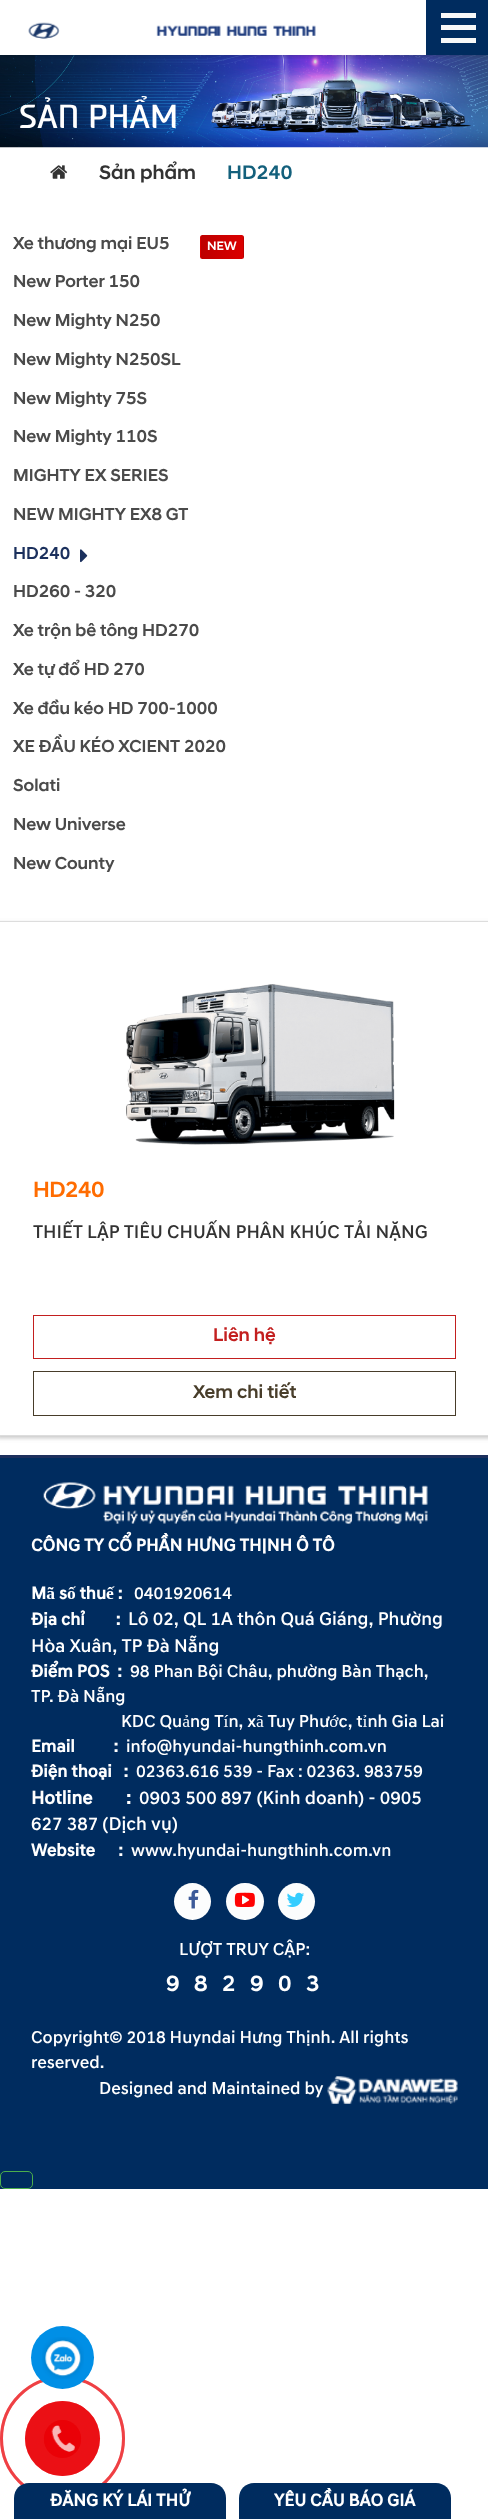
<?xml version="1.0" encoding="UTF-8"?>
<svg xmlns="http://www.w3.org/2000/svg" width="488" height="2519">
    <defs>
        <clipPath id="clip1"><rect x="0" y="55" width="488" height="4"/></clipPath>
        <filter id="blur1" x="-50%" y="-200%" width="200%" height="500%"><feGaussianBlur stdDeviation="3"/></filter>
        <clipPath id="clip2"><rect x="200" y="235" width="44" height="24" rx="2.5"/></clipPath>
        <linearGradient id="g1" gradientUnits="userSpaceOnUse" x1="201" y1="247" x2="160" y2="247"><stop offset="0" stop-color="#DB0000"/><stop offset="1" stop-color="#BD0000"/></linearGradient>
        <linearGradient id="g2" gradientUnits="userSpaceOnUse" x1="243" y1="247" x2="201" y2="247"><stop offset="0" stop-color="#DB0000"/><stop offset="1" stop-color="#BD0000"/></linearGradient>
        <linearGradient id="g3" gradientUnits="userSpaceOnUse" x1="284" y1="247" x2="243" y2="247"><stop offset="0" stop-color="#DB0000"/><stop offset="1" stop-color="#BD0000"/></linearGradient>
        <clipPath id="clip3"><path d="M 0 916 H 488 V 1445 H 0 Z M -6 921 H 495 V 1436 H -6 Z" clip-rule="evenodd"/></clipPath>
        <filter id="blur2" x="-50%" y="-200%" width="200%" height="500%"><feGaussianBlur stdDeviation="2"/></filter>
        <clipPath id="clip4"><rect x="33" y="1220" width="423" height="83"/></clipPath>
    </defs>
    <rect width="100%" height="100%" fill="#FFFFFF"/>
    <image x="0" y="55" width="488" height="93" href="img_03.png"/>
    <g clip-path="url(#clip1)">
        <rect x="0" y="0" width="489" height="55" fill="#000000" fill-opacity="0.3" filter="url(#blur1)"/>
    </g>
    <image x="28" y="22" width="32" height="17" href="img_01.png"/>
    <image x="156" y="25" width="160" height="11" href="img_02.png"/>
    <rect x="426" y="0" width="62" height="55" fill="#002C5F"/>
    <rect x="441" y="13" width="35" height="5" fill="#F8F8F8"/>
    <rect x="441" y="25" width="35" height="5" fill="#F8F8F8"/>
    <rect x="441" y="38" width="35" height="5" fill="#F8F8F8"/>
    <text x="19" y="127" font-family="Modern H" font-size="31.25" font-weight="700" fill="#FFFFFF">SẢN PHẨM</text>
    <image x="50" y="165" width="18" height="14" href="img_04.png"/>
    <text x="99" y="179" font-family="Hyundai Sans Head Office" font-size="20" font-weight="500" fill="#333333">Sản phẩm</text>
    <text x="227" y="179" font-family="Hyundai Sans Head Office" font-size="20" font-weight="500" fill="#13607C">HD240</text>
    <text x="13" y="249" font-family="Hyundai Sans Head Office" font-size="17.5" font-weight="500" fill="#4A4A4A">Xe thương mại EU5</text>
    <g clip-path="url(#clip2)">
        <rect x="200" y="235" width="1" height="24" fill="url(#g1)"/>
        <rect x="201" y="235" width="42" height="24" fill="url(#g2)"/>
        <rect x="243" y="235" width="1" height="24" fill="url(#g3)"/>
    </g>
    <text x="207" y="250" font-family="Hyundai Sans Head Office" font-size="12.5" font-weight="500" fill="#FFFFFF">NEW</text>
    <text x="13" y="287" font-family="Hyundai Sans Head Office" font-size="17.5" font-weight="500" fill="#4A4A4A">New Porter 150</text>
    <text x="13" y="326" font-family="Hyundai Sans Head Office" font-size="17.5" font-weight="500" fill="#4A4A4A">New Mighty N250</text>
    <text x="13" y="365" font-family="Hyundai Sans Head Office" font-size="17.5" font-weight="500" fill="#4A4A4A">New Mighty N250SL</text>
    <text x="13" y="404" font-family="Hyundai Sans Head Office" font-size="17.5" font-weight="500" fill="#4A4A4A">New Mighty 75S</text>
    <text x="13" y="442" font-family="Hyundai Sans Head Office" font-size="17.5" font-weight="500" fill="#4A4A4A">New Mighty 110S</text>
    <text x="13" y="481" font-family="Hyundai Sans Head Office" font-size="17.5" font-weight="500" fill="#4A4A4A">MIGHTY EX SERIES</text>
    <text x="13" y="520" font-family="Hyundai Sans Head Office" font-size="17.5" font-weight="500" fill="#4A4A4A">NEW MIGHTY EX8 GT</text>
    <text x="13" y="559" font-family="Hyundai Sans Head Office" font-size="17.5" font-weight="500" fill="#1B305D">HD240</text>
    <image x="80" y="549" width="8" height="14" href="img_05.png"/>
    <text x="13" y="597" font-family="Hyundai Sans Head Office" font-size="17.5" font-weight="500" fill="#4A4A4A">HD260 - 320</text>
    <text x="13" y="636" font-family="Hyundai Sans Head Office" font-size="17.5" font-weight="500" fill="#4A4A4A">Xe trộn bê tông HD270</text>
    <text x="13" y="675" font-family="Hyundai Sans Head Office" font-size="17.5" font-weight="500" fill="#4A4A4A">Xe tự đổ HD 270</text>
    <text x="13" y="714" font-family="Hyundai Sans Head Office" font-size="17.5" font-weight="500" fill="#4A4A4A">Xe đầu kéo HD 700-1000</text>
    <text x="13" y="752" font-family="Hyundai Sans Head Office" font-size="17.5" font-weight="500" fill="#4A4A4A">XE ĐẦU KÉO XCIENT 2020</text>
    <text x="13" y="791" font-family="Hyundai Sans Head Office" font-size="17.5" font-weight="500" fill="#4A4A4A">Solati</text>
    <text x="13" y="830" font-family="Hyundai Sans Head Office" font-size="17.5" font-weight="500" fill="#4A4A4A">New Universe</text>
    <text x="13" y="869" font-family="Hyundai Sans Head Office" font-size="17.5" font-weight="500" fill="#4A4A4A">New County</text>
    <g clip-path="url(#clip3)">
        <rect x="-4" y="923" width="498" height="515" fill="#909090" fill-opacity="0.5" filter="url(#blur2)"/>
    </g>
    <rect x="-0.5" y="921.5" width="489" height="514" fill="none" stroke="#DDDDDD"/>
    <image x="126" y="984" width="269" height="161" href="img_06.png"/>
    <text x="33" y="1197" font-family="Hyundai Sans Head Office" font-size="22.5" font-weight="500" letter-spacing="-0.5" fill="#FF6C00">HD240</text>
    <g clip-path="url(#clip4)">
        <text x="33" y="1238" font-family="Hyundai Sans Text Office" font-size="18.75" font-weight="500" fill="#333333">THIẾT LẬP TIÊU CHUẨN PHÂN KHÚC TẢI NẶNG</text>
    </g>
    <rect x="33.5" y="1315.5" width="422" height="43" fill="none" stroke="#C31F1F"/>
    <text x="213" y="1341" font-family="Hyundai Sans Head Office" font-size="18.75" font-weight="500" fill="#C31F1F">Liên hệ</text>
    <rect x="33.5" y="1371.5" width="422" height="44" fill="none" stroke="#483D2A"/>
    <text x="193" y="1398" font-family="Hyundai Sans Head Office" font-size="18.75" font-weight="500" fill="#483D2A">Xem chi tiết</text>
    <rect x="0" y="1458" width="488" height="731" fill="#002C5F"/>
    <rect x="0" y="1455" width="488" height="3" fill="#1C2F5D"/>
    <image x="43" y="1482" width="385" height="42" href="img_07.png"/>
    <text x="31" y="1551" font-family="Hyundai Sans Text Office" font-size="17.5" font-weight="700" fill="#FFFFFF">CÔNG TY CỔ PHẦN HƯNG THỊNH Ô TÔ</text>
    <text x="31" y="1599" font-family="Hyundai Sans Text Office" font-size="17.5" font-weight="700" fill="#FFFFFF">Mã số thuế :</text>
    <text x="134" y="1599" font-family="Hyundai Sans Text Office" font-size="17.5" font-weight="500" fill="#FFFFFF">0401920614</text>
    <text x="31" y="1625" font-family="Hyundai Sans Text Office" font-size="17.5" font-weight="700" fill="#FFFFFF" xml:space="preserve">Địa chỉ        :</text>
    <text x="128" y="1625" font-family="Hyundai Sans Text Office" font-size="18.75" font-weight="500" fill="#FFFFFF">Lô 02, QL 1A thôn Quá Giáng, Phường</text>
    <text x="31" y="1652" font-family="Hyundai Sans Text Office" font-size="18.75" font-weight="500" fill="#FFFFFF">Hòa Xuân, TP Đà Nẵng</text>
    <text x="31" y="1677" font-family="Hyundai Sans Text Office" font-size="17.5" font-weight="700" fill="#FFFFFF" xml:space="preserve">Điểm POS  :</text>
    <text x="130" y="1677" font-family="Hyundai Sans Text Office" font-size="17.5" font-weight="500" fill="#FFFFFF">98 Phan Bội Châu, phường Bàn Thạch,</text>
    <text x="31" y="1702" font-family="Hyundai Sans Text Office" font-size="17.5" font-weight="500" fill="#FFFFFF">TP. Đà Nẵng</text>
    <text x="121" y="1727" font-family="Hyundai Sans Text Office" font-size="17.5" font-weight="500" fill="#FFFFFF">KDC Quảng Tín, xã Tuy Phước, tỉnh Gia Lai</text>
    <text x="31" y="1752" font-family="Hyundai Sans Text Office" font-size="17.5" font-weight="700" fill="#FFFFFF" xml:space="preserve">Email          :</text>
    <text x="126" y="1752" font-family="Hyundai Sans Text Office" font-size="17.5" font-weight="500" fill="#FFFFFF">info@hyundai-hungthinh.com.vn</text>
    <text x="31" y="1777" font-family="Hyundai Sans Text Office" font-size="17.5" font-weight="700" fill="#FFFFFF" xml:space="preserve">Điện thoại   :</text>
    <text x="136" y="1777" font-family="Hyundai Sans Text Office" font-size="17.5" font-weight="500" fill="#FFFFFF">02363.616 539 - Fax : 02363. 983759</text>
    <text x="31" y="1804" font-family="Hyundai Sans Text Office" font-size="18.75" font-weight="700" fill="#FFFFFF">Hotline</text>
    <text x="126" y="1804" font-family="Hyundai Sans Text Office" font-size="18.75" font-weight="700" fill="#FFFFFF">:</text>
    <text x="139" y="1804" font-family="Hyundai Sans Text Office" font-size="18.75" font-weight="500" fill="#FFFFFF">0903 500 897 (Kinh doanh) - 0905</text>
    <text x="31" y="1830" font-family="Hyundai Sans Text Office" font-size="18.75" font-weight="500" fill="#FFFFFF">627 387 (Dịch vụ)</text>
    <text x="31" y="1856" font-family="Hyundai Sans Text Office" font-size="17.5" font-weight="700" fill="#FFFFFF" xml:space="preserve">Website      :</text>
    <text x="131" y="1856" font-family="Hyundai Sans Text Office" font-size="17.5" font-weight="500" fill="#FFFFFF">www.hyundai-hungthinh.com.vn</text>
    <circle cx="192.5" cy="1901.5" r="18.5" fill="#FCFDFD"/>
    <image x="188" y="1889" width="11" height="20" href="img_08.png"/>
    <rect x="226" y="1883" width="38" height="37" rx="18.5" fill="#FCFDFD"/>
    <image x="234" y="1892" width="21" height="15" href="img_09.png"/>
    <circle cx="296.5" cy="1901.5" r="18.5" fill="#FCFDFD"/>
    <image x="286" y="1892" width="19" height="15" href="img_10.png"/>
    <text x="179" y="1955" font-family="Hyundai Sans Text Office" font-size="17.5" font-weight="500" fill="#FFFFFF">LƯỢT TRUY CẬP:</text>
    <text x="166" y="1991" font-family="Hyundai Sans Head Office" font-size="22.5" font-weight="500" letter-spacing="14.5" fill="#FFFFFF">982903</text>
    <text font-family="Hyundai Sans Text Office" font-size="17.5" font-weight="500" fill="#FFFFFF">
        <tspan x="31" y="2043">Copyright© 2018 Huyndai Hưng Thịnh. All rights</tspan>
        <tspan x="31" y="2068">reserved.</tspan>
    </text>
    <text x="99" y="2094" font-family="Hyundai Sans Text Office" font-size="17.5" font-weight="500" fill="#FFFFFF">Designed and Maintained by</text>
    <image x="327" y="2076" width="131" height="28" href="img_11.png"/>
    <circle cx="62.5" cy="2438.5" r="61" fill="none" stroke="#F58083" stroke-width="3"/>
    <circle cx="62.5" cy="2438.5" r="37.5" fill="#EF4044"/>
    <rect x="44" y="2420" width="37" height="38" rx="18.5" fill="#EC1319"/>
    <image x="51" y="2425" width="24" height="27" href="img_13.png"/>
    <circle cx="62.5" cy="2438.5" r="61" fill="none" stroke="#EA0006" stroke-opacity="0.5" stroke-width="3"/>
    <circle cx="62.5" cy="2357.5" r="31.5" fill="#008FE6"/>
    <image x="42" y="2337" width="42" height="42" href="img_12.png"/>
    <circle cx="62.5" cy="2438.5" r="37.5" fill="#EA0006" fill-opacity="0.75"/>
    <rect x="44" y="2420" width="37" height="38" rx="18.5" fill="#EA0006" fill-opacity="0.7"/>
    <image x="51" y="2425" width="24" height="27" href="img_14.png"/>
    <path d="M 29 2483 H 211 C 219.5 2483 226 2489.5 226 2498 V 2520 H 14 V 2498 C 14 2489.5 20.5 2483 29 2483 Z" fill="#002C5F"/>
    <text x="50" y="2506" font-family="Hyundai Sans Text Office" font-size="17.5" font-weight="700" fill="#FFFFFF">ĐĂNG KÝ LÁI THỬ</text>
    <path d="M 254 2483 H 436 C 444.5 2483 451 2489.5 451 2498 V 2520 H 239 V 2498 C 239 2489.5 245.5 2483 254 2483 Z" fill="#002C5F"/>
    <text x="274" y="2506" font-family="Hyundai Sans Text Office" font-size="17.5" font-weight="700" fill="#FFFFFF">YÊU CẦU BÁO GIÁ</text>
    <rect x="0.5" y="2171.5" width="32" height="17" rx="4.5" fill="none" stroke="#4CAE4C"/>
</svg>
